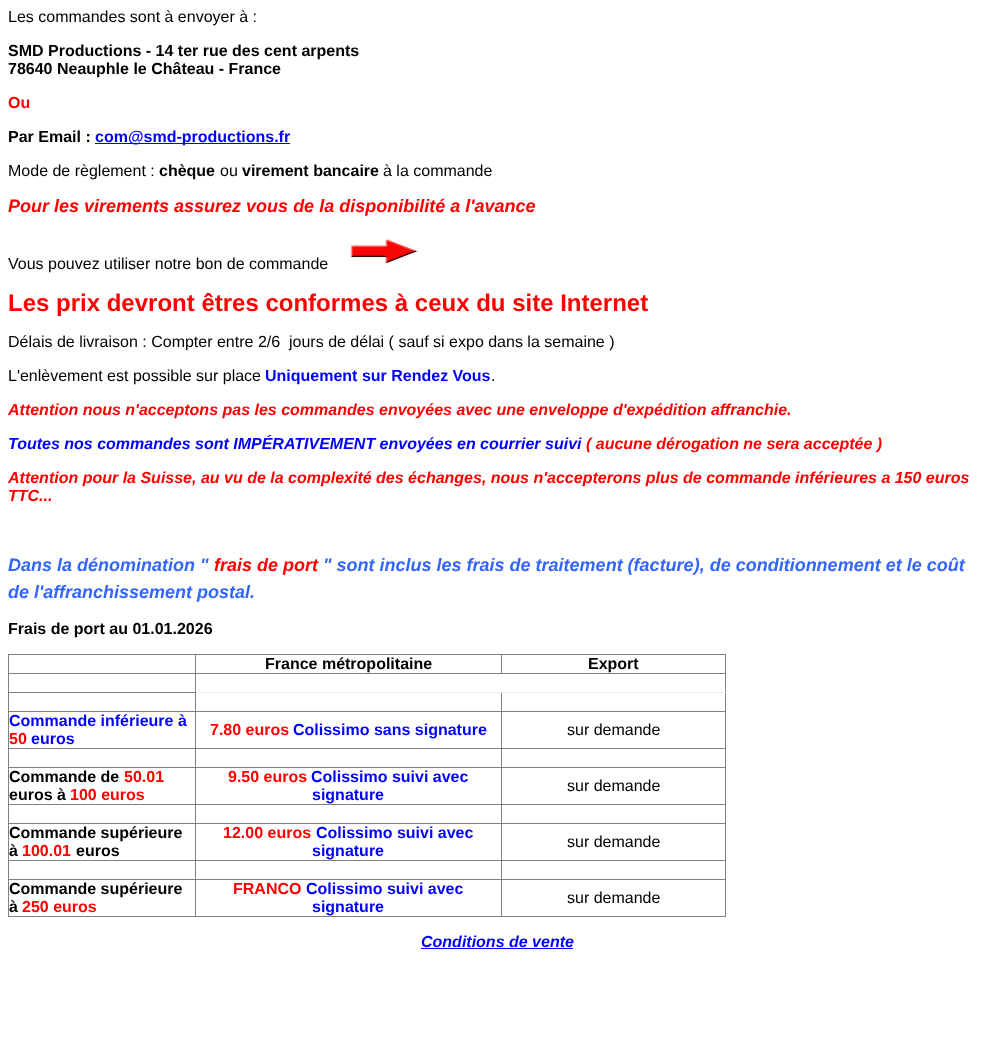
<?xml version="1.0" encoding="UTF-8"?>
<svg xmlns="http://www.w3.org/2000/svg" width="994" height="1064">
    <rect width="100%" height="100%" fill="#FFFFFF"/>
    <text x="8" y="22" font-family="Liberation Sans" font-size="16" fill="#000000">Les commandes sont à envoyer à :</text>
    <text font-family="Liberation Sans" font-size="16" font-weight="700" fill="#000000">
        <tspan x="8" y="56">SMD Productions - 14 ter rue des cent arpents</tspan>
        <tspan x="8" y="74">78640 Neauphle le Château - France</tspan>
    </text>
    <text x="8" y="108" font-family="Liberation Sans" font-size="16" font-weight="700" fill="#FF0000">Ou</text>
    <text x="8" y="142" font-family="Liberation Sans" font-size="16" font-weight="700" fill="#000000">Par Email :</text>
    <rect x="95" y="143" width="195" height="1" fill="#0000FF"/>
    <text x="95" y="142" font-family="Liberation Sans" font-size="16" font-weight="700" fill="#0000FF">com@smd-productions.fr</text>
    <text x="8" y="176" font-family="Liberation Sans" font-size="16" fill="#000000">Mode de règlement :</text>
    <text x="159" y="176" font-family="Liberation Sans" font-size="16" font-weight="700" fill="#000000">chèque</text>
    <text x="220" y="176" font-family="Liberation Sans" font-size="16" fill="#000000">ou</text>
    <text x="242" y="176" font-family="Liberation Sans" font-size="16" font-weight="700" fill="#000000">virement bancaire</text>
    <text x="383" y="176" font-family="Liberation Sans" font-size="16" fill="#000000">à la commande</text>
    <text x="8" y="212" font-family="Liberation Sans" font-size="18" font-weight="700" font-style="italic" fill="#FF0000">Pour les virements assurez vous de la disponibilité a l'avance</text>
    <text x="8" y="269" font-family="Liberation Sans" font-size="16" fill="#000000">Vous pouvez utiliser notre bon de commande</text>
    <image x="349" y="237" width="71" height="27" href="img_01.png"/>
    <text x="8" y="311" font-family="Liberation Sans" font-size="24" font-weight="700" fill="#FF0000">Les prix devront êtres conformes à ceux du site Internet</text>
    <text x="8" y="347" font-family="Liberation Sans" font-size="16" fill="#000000">Délais de livraison : Compter entre 2/6</text>
    <text x="289" y="347" font-family="Liberation Sans" font-size="16" fill="#000000">jours de délai ( sauf si expo dans la semaine )</text>
    <text x="8" y="381" font-family="Liberation Sans" font-size="16" fill="#000000">L'enlèvement est possible sur place</text>
    <text x="265" y="381" font-family="Liberation Sans" font-size="16" font-weight="700" fill="#0000FF">Uniquement sur Rendez Vous</text>
    <text x="491" y="381" font-family="Liberation Sans" font-size="16" fill="#000000">.</text>
    <text x="8" y="415" font-family="Liberation Sans" font-size="16" font-weight="700" font-style="italic" fill="#FF0000">Attention nous n'acceptons pas les commandes envoyées avec une enveloppe d'expédition affranchie.</text>
    <text x="8" y="449" font-family="Liberation Sans" font-size="16" font-weight="700" font-style="italic" fill="#0000FF">Toutes nos commandes sont IMPÉRATIVEMENT envoyées en courrier suivi</text>
    <text x="586" y="449" font-family="Liberation Sans" font-size="16" font-weight="700" font-style="italic" fill="#FF0000">( aucune dérogation ne sera acceptée )</text>
    <text font-family="Liberation Sans" font-size="16" font-weight="700" font-style="italic" fill="#FF0000">
        <tspan x="8" y="483">Attention pour la Suisse, au vu de la complexité des échanges, nous n'accepterons plus de commande inférieures a 150 euros</tspan>
        <tspan x="8" y="501">TTC...</tspan>
    </text>
    <text x="8" y="571" font-family="Liberation Sans" font-size="18" font-weight="700" font-style="italic" fill="#3366FF">Dans la dénomination "</text>
    <text x="214" y="571" font-family="Liberation Sans" font-size="18" font-weight="700" font-style="italic" fill="#FF0000">frais de port</text>
    <text x="323" y="571" font-family="Liberation Sans" font-size="18" font-weight="700" font-style="italic" fill="#3366FF">" sont inclus les frais de traitement (facture), de conditionnement et le coût</text>
    <text x="8" y="598" font-family="Liberation Sans" font-size="18" font-weight="700" font-style="italic" fill="#3366FF">de l'affranchissement postal.</text>
    <text x="8" y="634" font-family="Liberation Sans" font-size="16" font-weight="700" fill="#000000">Frais de port au 01.01.2026</text>
    <rect x="8" y="654" width="718" height="1" fill="#808080"/>
    <rect x="725" y="654" width="1" height="263" fill="#808080"/>
    <rect x="8" y="916" width="718" height="1" fill="#808080"/>
    <rect x="8" y="654" width="1" height="263" fill="#808080"/>
    <rect x="501" y="673" width="225" height="1" fill="#808080"/>
    <rect x="501" y="654" width="1" height="20" fill="#808080"/>
    <rect x="8" y="673" width="188" height="1" fill="#808080"/>
    <rect x="501" y="711" width="225" height="1" fill="#808080"/>
    <rect x="501" y="748" width="225" height="1" fill="#808080"/>
    <rect x="501" y="767" width="225" height="1" fill="#808080"/>
    <rect x="501" y="804" width="225" height="1" fill="#808080"/>
    <rect x="501" y="823" width="225" height="1" fill="#808080"/>
    <rect x="501" y="860" width="225" height="1" fill="#808080"/>
    <rect x="501" y="879" width="225" height="1" fill="#808080"/>
    <rect x="501" y="879" width="1" height="38" fill="#808080"/>
    <rect x="195" y="879" width="307" height="1" fill="#808080"/>
    <rect x="501" y="860" width="1" height="20" fill="#808080"/>
    <rect x="195" y="860" width="307" height="1" fill="#808080"/>
    <rect x="501" y="823" width="1" height="38" fill="#808080"/>
    <rect x="195" y="823" width="307" height="1" fill="#808080"/>
    <rect x="501" y="804" width="1" height="20" fill="#808080"/>
    <rect x="195" y="804" width="307" height="1" fill="#808080"/>
    <rect x="501" y="767" width="1" height="38" fill="#808080"/>
    <rect x="195" y="767" width="307" height="1" fill="#808080"/>
    <rect x="501" y="748" width="1" height="20" fill="#808080"/>
    <rect x="195" y="748" width="307" height="1" fill="#808080"/>
    <rect x="501" y="711" width="1" height="38" fill="#808080"/>
    <rect x="195" y="711" width="307" height="1" fill="#808080"/>
    <rect x="195" y="879" width="1" height="38" fill="#808080"/>
    <rect x="8" y="879" width="188" height="1" fill="#808080"/>
    <rect x="195" y="860" width="1" height="20" fill="#808080"/>
    <rect x="8" y="860" width="188" height="1" fill="#808080"/>
    <rect x="195" y="823" width="1" height="38" fill="#808080"/>
    <rect x="8" y="823" width="188" height="1" fill="#808080"/>
    <rect x="195" y="804" width="1" height="20" fill="#808080"/>
    <rect x="8" y="804" width="188" height="1" fill="#808080"/>
    <rect x="195" y="767" width="1" height="38" fill="#808080"/>
    <rect x="8" y="767" width="188" height="1" fill="#808080"/>
    <rect x="195" y="748" width="1" height="20" fill="#808080"/>
    <rect x="8" y="748" width="188" height="1" fill="#808080"/>
    <rect x="195" y="711" width="1" height="38" fill="#808080"/>
    <rect x="8" y="711" width="188" height="1" fill="#808080"/>
    <rect x="195" y="692" width="1" height="20" fill="#808080"/>
    <rect x="8" y="692" width="188" height="1" fill="#808080"/>
    <rect x="501" y="692" width="1" height="20" fill="#808080"/>
    <rect x="195" y="692" width="531" height="1" fill="#EEEEEE"/>
    <rect x="195" y="673" width="1" height="20" fill="#808080"/>
    <rect x="195" y="673" width="307" height="1" fill="#808080"/>
    <rect x="195" y="654" width="1" height="20" fill="#808080"/>
    <text x="265" y="669" font-family="Liberation Sans" font-size="16" font-weight="700" fill="#000000">France métropolitaine</text>
    <text x="588" y="669" font-family="Liberation Sans" font-size="16" font-weight="700" fill="#000000">Export</text>
    <text x="9" y="726" font-family="Liberation Sans" font-size="16" font-weight="700" fill="#0000FF">Commande inférieure à</text>
    <text x="9" y="744" font-family="Liberation Sans" font-size="16" font-weight="700" fill="#FF0000">50</text>
    <text x="31" y="744" font-family="Liberation Sans" font-size="16" font-weight="700" fill="#0000FF">euros</text>
    <text x="210" y="735" font-family="Liberation Sans" font-size="16" font-weight="700" fill="#FF0000">7.80 euros</text>
    <text x="293" y="735" font-family="Liberation Sans" font-size="16" font-weight="700" fill="#0000FF">Colissimo sans signature</text>
    <text x="567" y="735" font-family="Liberation Sans" font-size="16" fill="#000000">sur demande</text>
    <text x="9" y="782" font-family="Liberation Sans" font-size="16" font-weight="700" fill="#000000">Commande de</text>
    <text x="124" y="782" font-family="Liberation Sans" font-size="16" font-weight="700" fill="#FF0000">50.01</text>
    <text x="9" y="800" font-family="Liberation Sans" font-size="16" font-weight="700" fill="#000000">euros à</text>
    <text x="70" y="800" font-family="Liberation Sans" font-size="16" font-weight="700" fill="#FF0000">100 euros</text>
    <text x="228" y="782" font-family="Liberation Sans" font-size="16" font-weight="700" fill="#FF0000">9.50 euros</text>
    <text x="311" y="782" font-family="Liberation Sans" font-size="16" font-weight="700" fill="#0000FF">Colissimo suivi avec</text>
    <text x="312" y="800" font-family="Liberation Sans" font-size="16" font-weight="700" fill="#0000FF">signature</text>
    <text x="567" y="791" font-family="Liberation Sans" font-size="16" fill="#000000">sur demande</text>
    <text font-family="Liberation Sans" font-size="16" font-weight="700" fill="#000000">
        <tspan x="9" y="838">Commande supérieure</tspan>
        <tspan x="9" y="856">à</tspan>
    </text>
    <text x="22" y="856" font-family="Liberation Sans" font-size="16" font-weight="700" fill="#FF0000">100.01</text>
    <text x="76" y="856" font-family="Liberation Sans" font-size="16" font-weight="700" fill="#000000">euros</text>
    <text x="223" y="838" font-family="Liberation Sans" font-size="16" font-weight="700" fill="#FF0000">12.00 euros</text>
    <text x="316" y="838" font-family="Liberation Sans" font-size="16" font-weight="700" fill="#0000FF">Colissimo suivi avec</text>
    <text x="312" y="856" font-family="Liberation Sans" font-size="16" font-weight="700" fill="#0000FF">signature</text>
    <text x="567" y="847" font-family="Liberation Sans" font-size="16" fill="#000000">sur demande</text>
    <text font-family="Liberation Sans" font-size="16" font-weight="700" fill="#000000">
        <tspan x="9" y="894">Commande supérieure</tspan>
        <tspan x="9" y="912">à</tspan>
    </text>
    <text x="22" y="912" font-family="Liberation Sans" font-size="16" font-weight="700" fill="#FF0000">250 euros</text>
    <text x="233" y="894" font-family="Liberation Sans" font-size="16" font-weight="700" fill="#FF0000">FRANCO</text>
    <text x="306" y="894" font-family="Liberation Sans" font-size="16" font-weight="700" fill="#0000FF">Colissimo suivi avec</text>
    <text x="312" y="912" font-family="Liberation Sans" font-size="16" font-weight="700" fill="#0000FF">signature</text>
    <text x="567" y="903" font-family="Liberation Sans" font-size="16" fill="#000000">sur demande</text>
    <text x="421" y="947" font-family="Liberation Sans" font-size="16" font-weight="700" font-style="italic" fill="#0000FF">Conditions de vente</text>
    <rect x="421" y="948" width="152" height="1" fill="#0000FF"/>
</svg>
